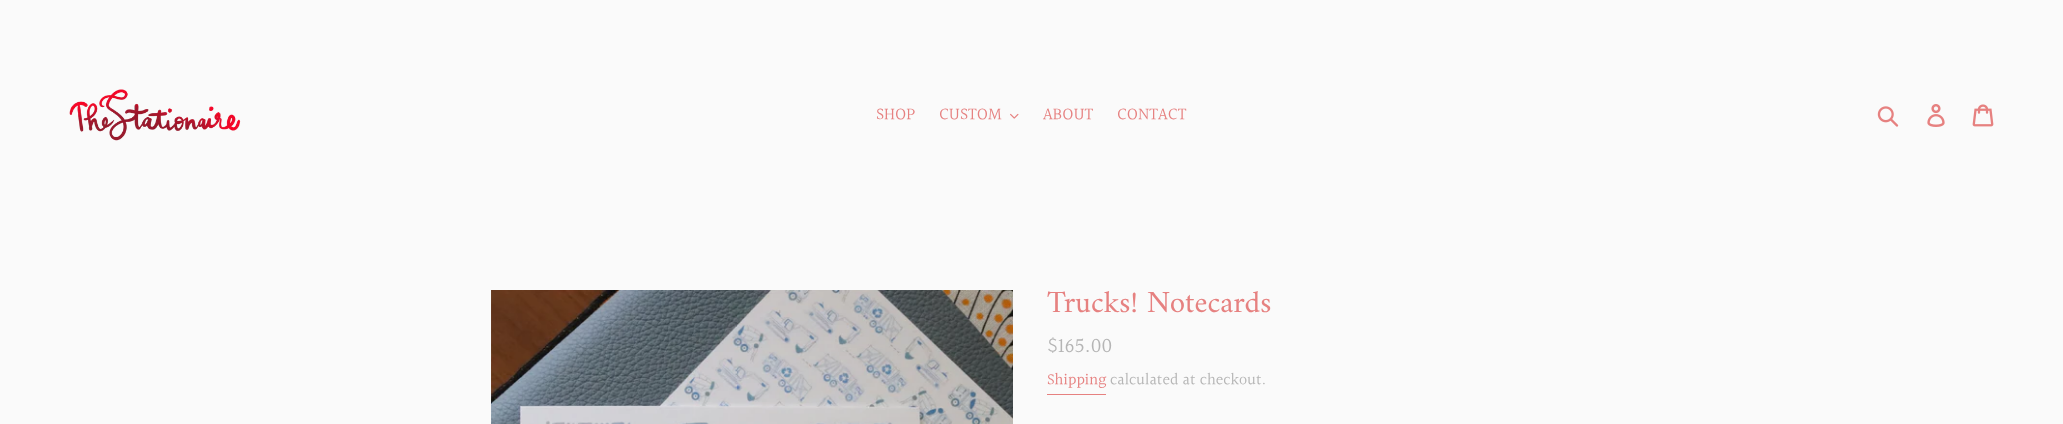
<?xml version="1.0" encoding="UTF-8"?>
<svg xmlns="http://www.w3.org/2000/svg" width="2063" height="424">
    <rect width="100%" height="100%" fill="#FAFAFA"/>
    <image x="69" y="89" width="172" height="52" href="img_01.png"/>
    <text x="876" y="120" font-family="Halant" font-size="17" fill="#E68180">SHOP</text>
    <text x="939" y="120" font-family="Halant" font-size="17" fill="#E68180">CUSTOM</text>
    <image x="1010" y="113" width="9" height="6" href="img_02.png"/>
    <text x="1043" y="120" font-family="Halant" font-size="17" fill="#E68180">ABOUT</text>
    <text x="1117" y="120" font-family="Halant" font-size="17" fill="#E68180">CONTACT</text>
    <image x="1877" y="106" width="22" height="21" href="img_03.png"/>
    <image x="1927" y="104" width="18" height="23" href="img_04.png"/>
    <image x="1972" y="104" width="22" height="23" href="img_05.png"/>
    <image x="491" y="290" width="522" height="134" href="img_06.png"/>
    <text x="1047" y="312" font-family="Amiri" font-size="31" fill="#E68180">Trucks! Notecards</text>
    <text x="1047" y="353" font-family="Halant" font-size="21" fill="#B5B5B5">$165.00</text>
    <text x="1047" y="385" font-family="Halant" font-size="16" fill="#E68180">Shipping</text>
    <rect x="1047" y="394" width="59" height="1" fill="#E68180"/>
    <text x="1110" y="385" font-family="Halant" font-size="16" fill="#B5B5B5">calculated at checkout.</text>
</svg>
